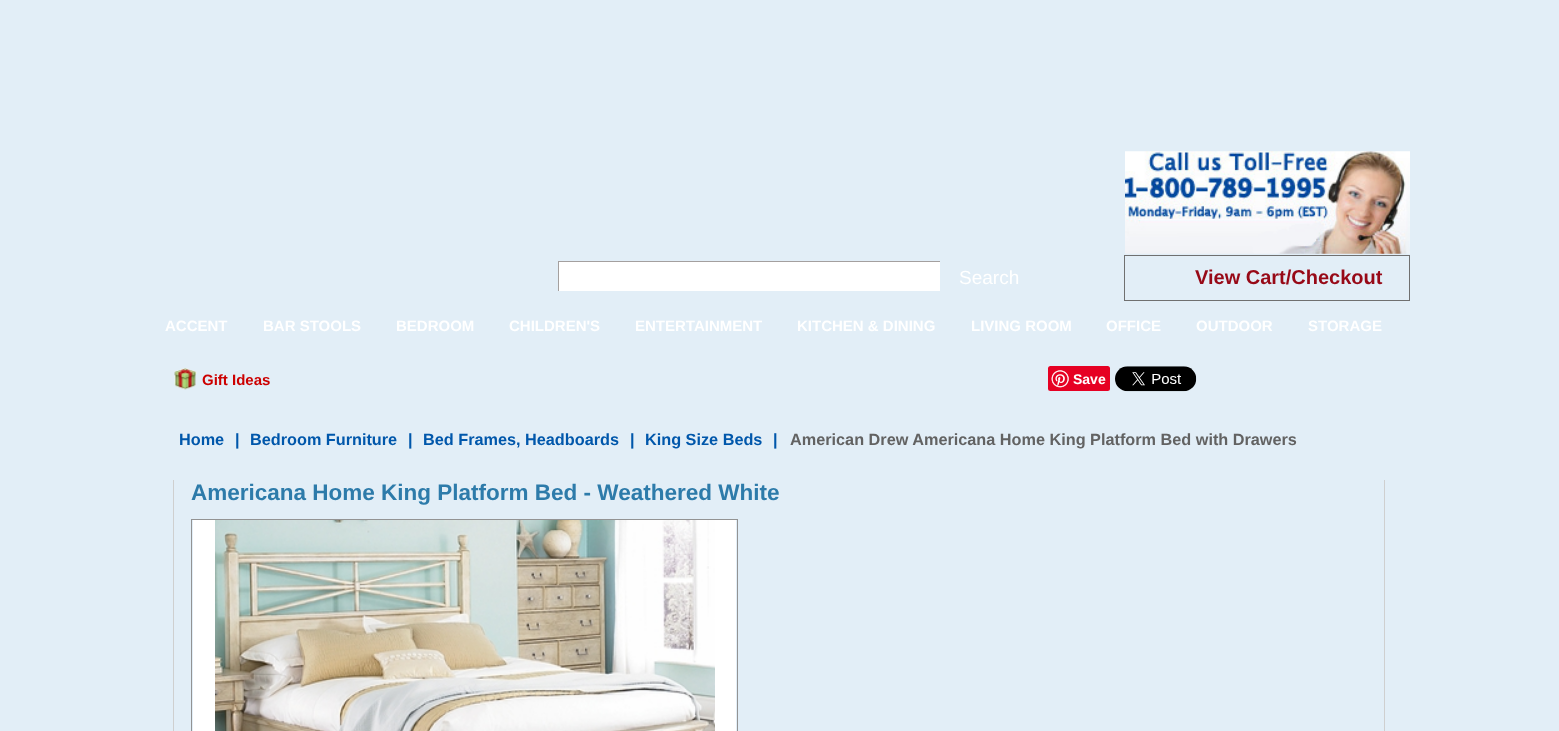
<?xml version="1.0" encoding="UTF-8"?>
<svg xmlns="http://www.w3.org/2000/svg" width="1559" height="731">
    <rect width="100%" height="100%" fill="#E2EEF7"/>
    <rect x="559" y="262" width="381" height="29" fill="#FFFFFF"/>
    <rect x="558" y="261" width="382" height="1" fill="#A4A09F"/>
    <rect x="558" y="261" width="1" height="30" fill="#A4A09F"/>
    <text x="959" y="284" font-family="Liberation Sans" font-size="19" fill="#FFFFFF">Search</text>
    <image x="1125" y="151" width="285" height="103" href="img_01.png"/>
    <rect x="1124.5" y="255.5" width="285" height="45" fill="none" stroke="#707070"/>
    <text x="1195" y="284" font-family="Liberation Sans" font-size="20" font-weight="700" fill="#970917">View Cart/Checkout</text>
    <text x="165" y="331" font-family="Liberation Sans" font-size="15" font-weight="700" fill="#FFFFFF">ACCENT</text>
    <text x="263" y="331" font-family="Liberation Sans" font-size="15" font-weight="700" fill="#FFFFFF">BAR STOOLS</text>
    <text x="396" y="331" font-family="Liberation Sans" font-size="15" font-weight="700" fill="#FFFFFF">BEDROOM</text>
    <text x="509" y="331" font-family="Liberation Sans" font-size="15" font-weight="700" fill="#FFFFFF">CHILDREN'S</text>
    <text x="635" y="331" font-family="Liberation Sans" font-size="15" font-weight="700" fill="#FFFFFF">ENTERTAINMENT</text>
    <text x="797" y="331" font-family="Liberation Sans" font-size="15" font-weight="700" fill="#FFFFFF">KITCHEN &amp; DINING</text>
    <text x="971" y="331" font-family="Liberation Sans" font-size="15" font-weight="700" fill="#FFFFFF">LIVING ROOM</text>
    <text x="1106" y="331" font-family="Liberation Sans" font-size="15" font-weight="700" fill="#FFFFFF">OFFICE</text>
    <text x="1196" y="331" font-family="Liberation Sans" font-size="15" font-weight="700" fill="#FFFFFF">OUTDOOR</text>
    <text x="1308" y="331" font-family="Liberation Sans" font-size="15" font-weight="700" fill="#FFFFFF">STORAGE</text>
    <image x="174" y="368" width="23" height="22" href="img_02.png"/>
    <text x="202" y="385" font-family="Liberation Sans" font-size="15" font-weight="700" fill="#CC0000">Gift Ideas</text>
    <rect x="1048" y="366" width="62" height="25" rx="2.5" fill="#E60023"/>
    <image x="1051" y="370" width="18" height="18" href="img_03.png"/>
    <text x="1073" y="384" font-family="Liberation Sans" font-size="14" font-weight="700" fill="#FFFFFF">Save</text>
    <image x="1115" y="366" width="82" height="26" href="img_04.png"/>
    <text x="179" y="445" font-family="Liberation Sans" font-size="16.25" font-weight="700" fill="#0057AB">Home</text>
    <text x="235" y="445" font-family="Liberation Sans" font-size="16.25" font-weight="700" fill="#0057AB">|</text>
    <text x="250" y="445" font-family="Liberation Sans" font-size="16.25" font-weight="700" fill="#0057AB">Bedroom Furniture</text>
    <text x="408" y="445" font-family="Liberation Sans" font-size="16.25" font-weight="700" fill="#0057AB">|</text>
    <text x="423" y="445" font-family="Liberation Sans" font-size="16.25" font-weight="700" fill="#0057AB">Bed Frames, Headboards</text>
    <text x="630" y="445" font-family="Liberation Sans" font-size="16.25" font-weight="700" fill="#0057AB">|</text>
    <text x="645" y="445" font-family="Liberation Sans" font-size="16.25" font-weight="700" fill="#0057AB">King Size Beds</text>
    <text x="773" y="445" font-family="Liberation Sans" font-size="16.25" font-weight="700" fill="#0057AB">|</text>
    <text x="790" y="445" font-family="Liberation Sans" font-size="16.25" font-weight="700" fill="#626262">American Drew Americana Home King Platform Bed with Drawers</text>
    <rect x="1384" y="480" width="1" height="251" fill="#CFCFCF"/>
    <rect x="173" y="480" width="1" height="251" fill="#CFCFCF"/>
    <text x="191" y="500" font-family="Liberation Sans" font-size="22.5" font-weight="700" fill="#2D7BAA">Americana Home King Platform Bed - Weathered White</text>
    <rect x="191.5" y="519.5" width="546" height="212" fill="none" stroke="#939393"/>
    <rect x="193" y="520" width="543" height="211" fill="#FFFFFF"/>
    <image x="215" y="520" width="500" height="211" href="img_05.png"/>
</svg>
